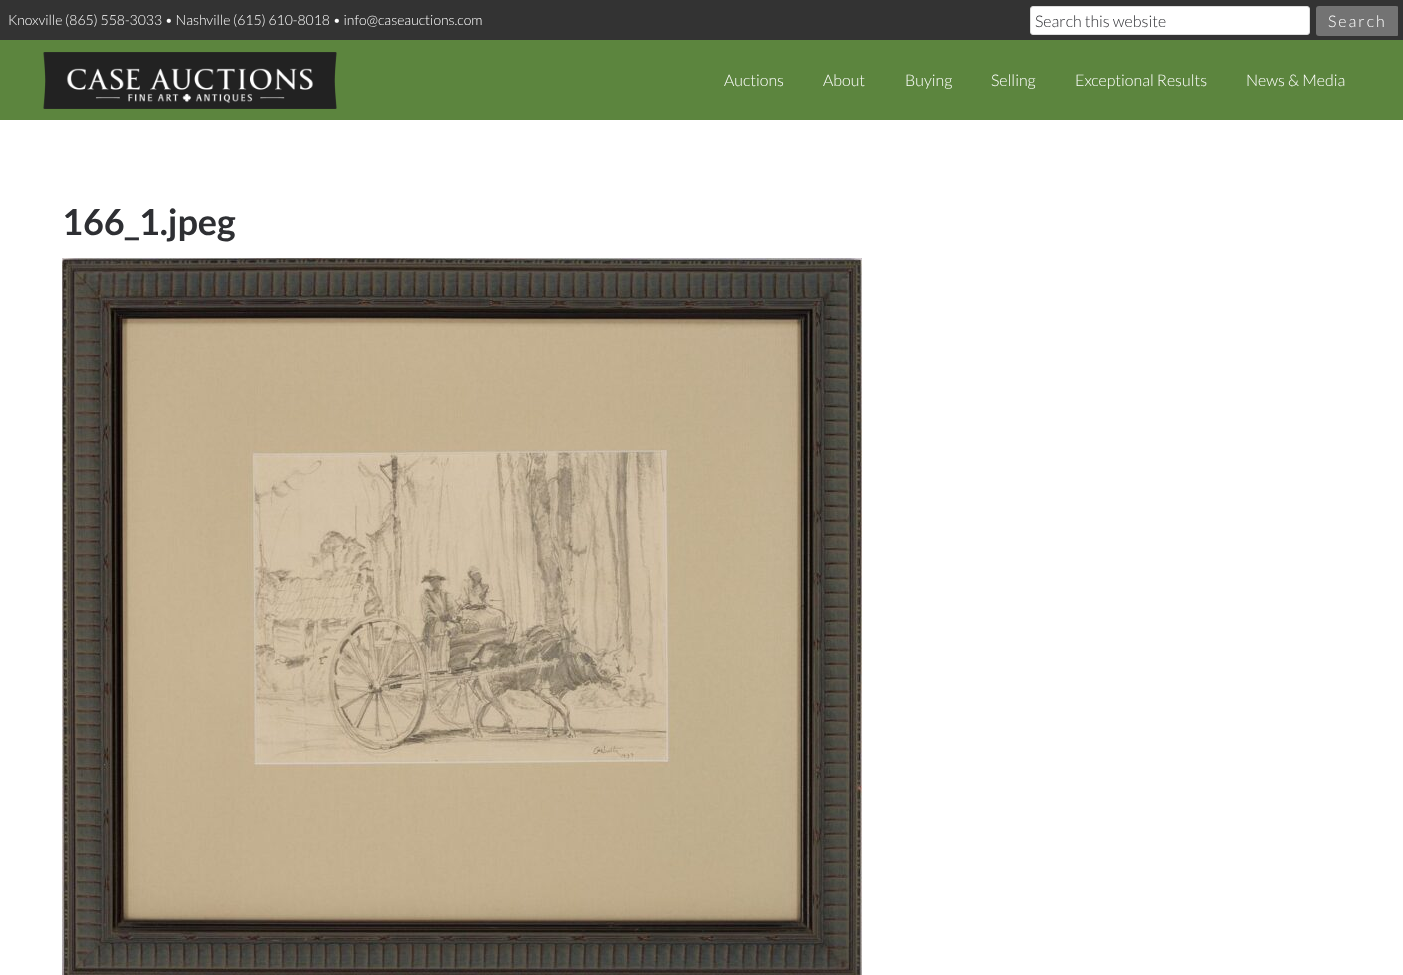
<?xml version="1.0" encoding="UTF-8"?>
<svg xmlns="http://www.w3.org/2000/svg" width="1403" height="975">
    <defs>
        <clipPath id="clip1"><rect x="1030" y="0" width="368" height="40"/></clipPath>
    </defs>
    <rect width="100%" height="100%" fill="#333333"/>
    <text x="8" y="25" font-family="Lato" font-size="14" font-weight="300" fill="#FFFFFF">Knoxville (865) 558-3033 • Nashville (615) 610-8018 • info@caseauctions.com</text>
    <rect x="1030.5" y="6.5" width="279" height="28" rx="2.5" fill="#FFFFFF" stroke="#DDDDDD"/>
    <text x="1035" y="27" font-family="Lato" font-size="16" font-weight="300" fill="#2E2F33">Search this website</text>
    <g clip-path="url(#clip1)">
        <rect x="1316" y="6" width="83" height="30" rx="3" fill="#737373"/>
    </g>
    <text x="1328" y="27" font-family="Lato" font-size="16" font-weight="300" letter-spacing="2" fill="#FFFFFF">Search</text>
    <rect x="0" y="40" width="1403" height="80" fill="#5C853E"/>
    <image x="43" y="52" width="294" height="57" href="img_01.png"/>
    <text x="724" y="86" font-family="Lato" font-size="16" font-weight="300" fill="#FFFFFF">Auctions</text>
    <text x="823" y="86" font-family="Lato" font-size="16" font-weight="300" fill="#FFFFFF">About</text>
    <text x="905" y="86" font-family="Lato" font-size="16" font-weight="300" fill="#FFFFFF">Buying</text>
    <text x="991" y="86" font-family="Lato" font-size="16" font-weight="300" fill="#FFFFFF">Selling</text>
    <text x="1075" y="86" font-family="Lato" font-size="16" font-weight="300" fill="#FFFFFF">Exceptional Results</text>
    <text x="1246" y="86" font-family="Lato" font-size="16" font-weight="300" fill="#FFFFFF">News &amp; Media</text>
    <rect x="0" y="120" width="1403" height="855" fill="#FFFFFF"/>
    <text x="62" y="235" font-family="Lato" font-size="36" font-weight="700" fill="#2E2F33">166_1.jpeg</text>
    <image x="62" y="258" width="800" height="717" href="img_02.png"/>
</svg>
